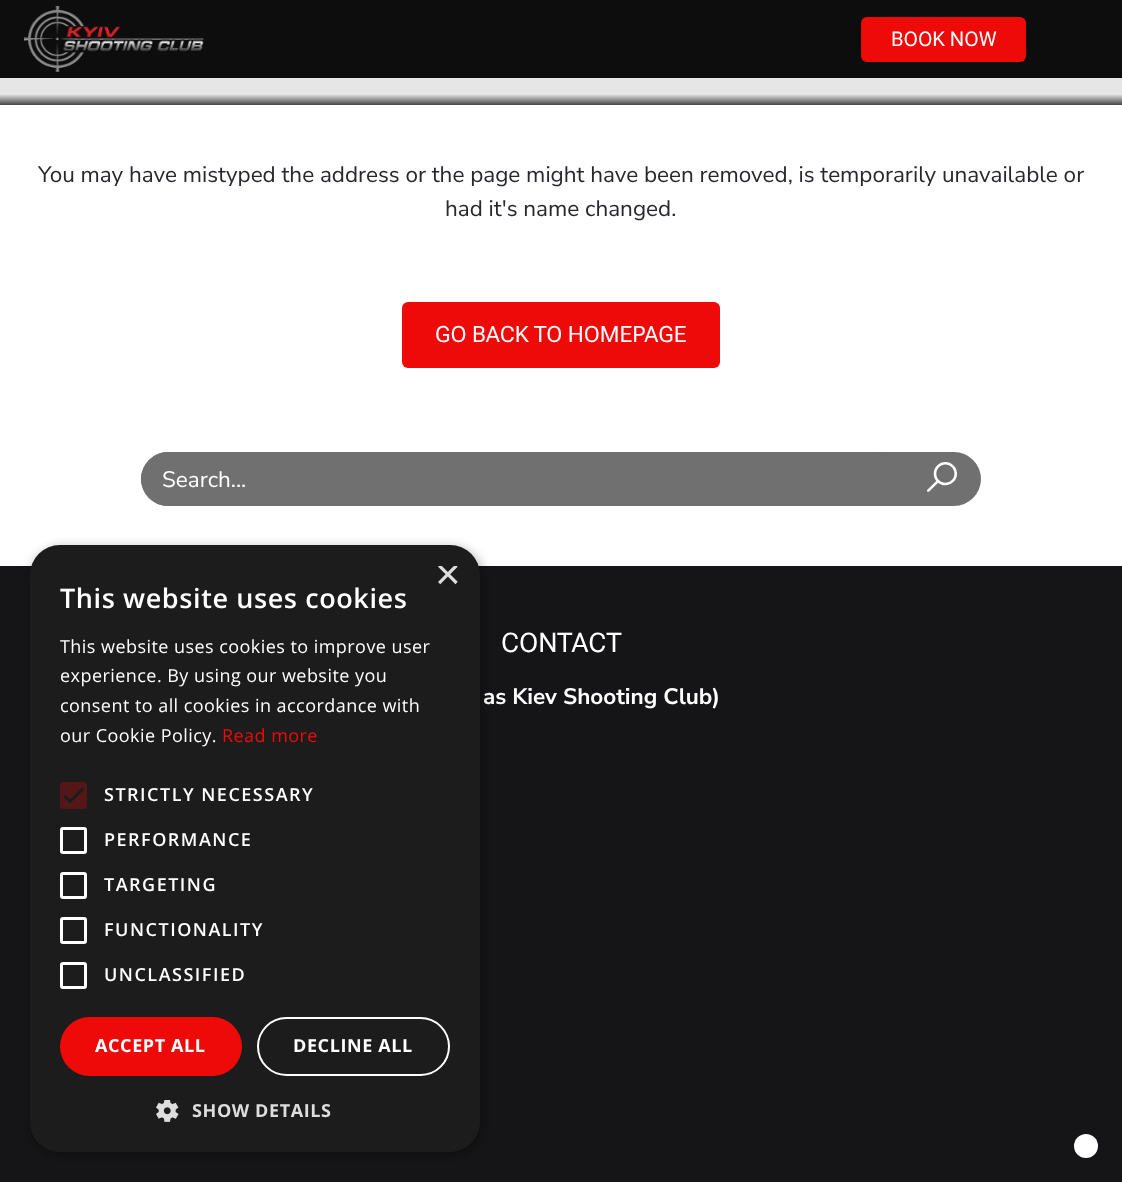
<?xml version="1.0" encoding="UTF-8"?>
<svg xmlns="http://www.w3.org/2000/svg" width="1122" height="1182">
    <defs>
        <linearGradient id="g1" gradientUnits="userSpaceOnUse" x1="561" y1="94" x2="561" y2="105"><stop offset="0" stop-color="#E6E6E6"/><stop offset="1" stop-color="#454545"/></linearGradient>
        <filter id="blur1" x="-50%" y="-200%" width="200%" height="500%"><feGaussianBlur stdDeviation="6"/></filter>
        <clipPath id="clip1"><rect x="435" y="566" width="23" height="22"/></clipPath>
    </defs>
    <rect width="100%" height="100%" fill="#FFFFFF"/>
    <rect x="0" y="78" width="1122" height="17" fill="#E6E6E6"/>
    <rect x="0" y="0" width="1122" height="78" fill="#0D0D0E"/>
    <image x="24" y="6" width="180" height="66" href="img_01.png"/>
    <rect x="861" y="17" width="165" height="45" rx="6" fill="#EF0A0A"/>
    <text x="891" y="46" font-family="Roboto Flex" font-size="20.25" fill="#FFFFFF">BOOK NOW</text>
    <rect x="0" y="95" width="1122" height="10" fill="url(#g1)"/>
    <text x="38" y="182" font-family="Nunito Sans" font-size="22.5" fill="#27272D">You may have mistyped the address or the page might have been removed, is temporarily unavailable or</text>
    <text x="445" y="216" font-family="Nunito Sans" font-size="22.5" fill="#27272D">had it's name changed.</text>
    <rect x="402" y="302" width="318" height="66" rx="6" fill="#EF0A0A"/>
    <text x="435" y="342" font-family="Roboto Flex" font-size="22.5" fill="#FFFFFF">GO BACK TO HOMEPAGE</text>
    <rect x="141" y="452" width="840" height="54" rx="27" fill="#707070"/>
    <rect x="141" y="452" width="759" height="54" rx="27" fill="#707070"/>
    <text x="162" y="487" font-family="Nunito Sans" font-size="22.5" fill="#FFFFFF">Search...</text>
    <image x="927" y="462" width="30" height="30" href="img_02.png"/>
    <rect x="0" y="566" width="1122" height="616" fill="#151517"/>
    <text x="501" y="652" font-family="Roboto Flex" font-size="27" fill="#FFFFFF">CONTACT</text>
    <text x="483" y="704" font-family="Nunito Sans" font-size="22.5" font-weight="700" fill="#FFFFFF">as Kiev Shooting Club)</text>
    <circle cx="1086" cy="1146" r="12" fill="#FFFFFF"/>
    <rect x="32" y="548" width="450" height="607" rx="30" fill="#000000" fill-opacity="0.35" filter="url(#blur1)"/>
    <rect x="30" y="545" width="450" height="607" rx="30" fill="#1C1C1C"/>
    <g clip-path="url(#clip1)">
        <text x="435" y="589" font-family="Liberation Sans" font-size="44" fill="#DDDDDD">×</text>
    </g>
    <text x="60" y="608" font-family="Open Sans" font-size="27" font-weight="600" letter-spacing="0.6" fill="#FFFFFF">This website uses cookies</text>
    <text font-family="Open Sans" font-size="18" letter-spacing="0.45" fill="#FFFFFF">
        <tspan x="60" y="653">This website uses cookies to improve user</tspan>
        <tspan x="60" y="682">experience. By using our website you</tspan>
        <tspan x="60" y="712">consent to all cookies in accordance with</tspan>
        <tspan x="60" y="742">our Cookie Policy.</tspan>
    </text>
    <text x="222" y="742" font-family="Open Sans" font-size="18" letter-spacing="0.45" fill="#EF0A0A">Read more</text>
    <rect x="60" y="782" width="27" height="27" rx="3" fill="#531717"/>
    <path d="M 64.5 796 L 70 801.5 L 83 788.5" fill="none" stroke="#1C1C1C" stroke-width="2.7"/>
    <text x="104" y="801" font-family="Open Sans" font-size="18" font-weight="600" letter-spacing="1.5" fill="#FFFFFF">STRICTLY NECESSARY</text>
    <rect x="61.5" y="828.5" width="24" height="24" rx="1.5" fill="none" stroke="#FFFFFF" stroke-width="3"/>
    <text x="104" y="846" font-family="Open Sans" font-size="18" font-weight="600" letter-spacing="1.5" fill="#FFFFFF">PERFORMANCE</text>
    <rect x="61.5" y="873.5" width="24" height="24" rx="1.5" fill="none" stroke="#FFFFFF" stroke-width="3"/>
    <text x="104" y="891" font-family="Open Sans" font-size="18" font-weight="600" letter-spacing="1.5" fill="#FFFFFF">TARGETING</text>
    <rect x="61.5" y="918.5" width="24" height="24" rx="1.5" fill="none" stroke="#FFFFFF" stroke-width="3"/>
    <text x="104" y="936" font-family="Open Sans" font-size="18" font-weight="600" letter-spacing="1.5" fill="#FFFFFF">FUNCTIONALITY</text>
    <rect x="61.5" y="963.5" width="24" height="24" rx="1.5" fill="none" stroke="#FFFFFF" stroke-width="3"/>
    <text x="104" y="981" font-family="Open Sans" font-size="18" font-weight="600" letter-spacing="1.5" fill="#FFFFFF">UNCLASSIFIED</text>
    <rect x="60" y="1017" width="182" height="59" rx="29.5" fill="#EF0A0A"/>
    <text x="95" y="1052" font-family="Open Sans" font-size="18" font-weight="700" letter-spacing="0.6" fill="#FFFFFF">ACCEPT ALL</text>
    <rect x="258" y="1018" width="191" height="57" rx="28.5" fill="none" stroke="#FFFFFF" stroke-width="2"/>
    <text x="293" y="1052" font-family="Open Sans" font-size="18" font-weight="700" letter-spacing="0.6" fill="#FFFFFF">DECLINE ALL</text>
    <image x="156" y="1100" width="23" height="22" href="img_03.png"/>
    <text x="192" y="1117" font-family="Open Sans" font-size="18" font-weight="700" letter-spacing="0.6" fill="#DDDDDD">SHOW DETAILS</text>
</svg>
